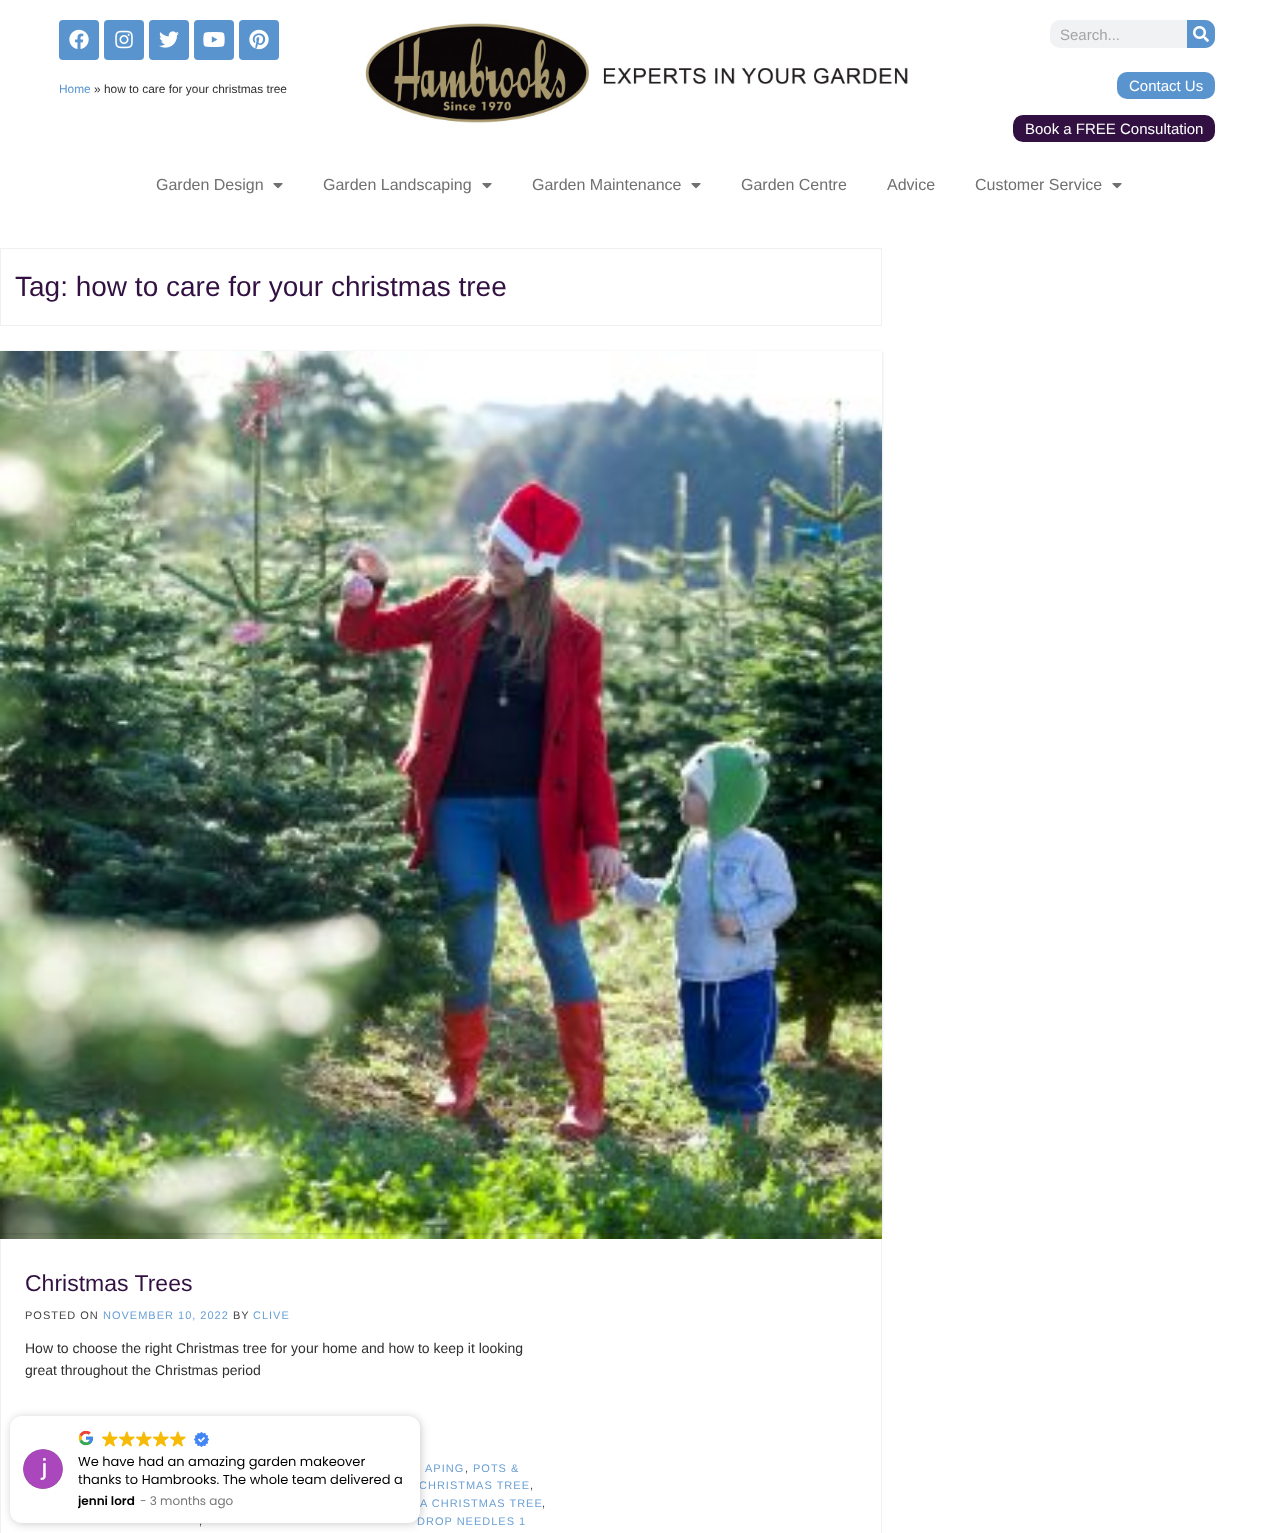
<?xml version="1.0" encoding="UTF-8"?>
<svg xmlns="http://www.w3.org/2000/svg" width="1278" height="1533">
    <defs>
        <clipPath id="clip1"><path d="M 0 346 H 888 V 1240 H 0 Z M 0 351 H 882 V 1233 H 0 Z" clip-rule="evenodd"/></clipPath>
        <filter id="blur1" x="-50%" y="-200%" width="200%" height="500%"><feGaussianBlur stdDeviation="1.5"/></filter>
        <filter id="blur2" x="-50%" y="-200%" width="200%" height="500%"><feGaussianBlur stdDeviation="4"/></filter>
        <clipPath id="clip2"><rect x="78" y="1493" width="62" height="17"/></clipPath>
    </defs>
    <rect width="100%" height="100%" fill="#FFFFFF"/>
    <rect x="59" y="20" width="40" height="40" rx="4" fill="#5994CF"/>
    <image x="69" y="29" width="20" height="20" href="img_01.png"/>
    <rect x="104" y="20" width="40" height="40" rx="4" fill="#5994CF"/>
    <image x="115" y="30" width="18" height="19" href="img_02.png"/>
    <rect x="149" y="20" width="40" height="40" rx="4" fill="#5994CF"/>
    <image x="159" y="31" width="20" height="17" href="img_03.png"/>
    <rect x="194" y="20" width="40" height="40" rx="4" fill="#5994CF"/>
    <image x="203" y="32" width="22" height="15" href="img_04.png"/>
    <rect x="239" y="20" width="40" height="40" rx="4" fill="#5994CF"/>
    <image x="249" y="29" width="20" height="21" href="img_05.png"/>
    <text x="59" y="93" font-family="Liberation Sans" font-size="11.9" fill="#5994CF">Home</text>
    <text x="94" y="93" font-family="Liberation Sans" font-size="11.9" fill="#302F2F">» how to care for your christmas tree</text>
    <image x="365" y="20" width="543" height="106" href="img_06.png"/>
    <rect x="1050" y="20" width="165" height="28" rx="10" fill="#F1F2F3"/>
    <text x="1060" y="40" font-family="Liberation Sans" font-size="15" fill="#A4A4A4">Search...</text>
    <path d="M 1187 20 H 1205 C 1210.5 20 1215 24.5 1215 30 V 38 C 1215 43.5 1210.5 48 1205 48 H 1187 Z" fill="#5994CF"/>
    <image x="1193" y="26" width="16" height="16" href="img_07.png"/>
    <rect x="1117" y="72" width="98" height="27" rx="10" fill="#5994CF"/>
    <text x="1129" y="91" font-family="Liberation Sans" font-size="15" fill="#FFFFFF">Contact Us</text>
    <rect x="1013" y="115" width="202" height="27" rx="10" fill="#321142"/>
    <text x="1025" y="134" font-family="Liberation Sans" font-size="15" fill="#FFFFFF">Book a FREE Consultation</text>
    <text x="156" y="190" font-family="Liberation Sans" font-size="16" fill="#707070">Garden Design</text>
    <image x="273" y="183" width="10" height="6" href="img_08.png"/>
    <text x="323" y="190" font-family="Liberation Sans" font-size="16" fill="#707070">Garden Landscaping</text>
    <image x="482" y="183" width="10" height="6" href="img_08.png"/>
    <text x="532" y="190" font-family="Liberation Sans" font-size="16" fill="#707070">Garden Maintenance</text>
    <image x="691" y="183" width="10" height="6" href="img_08.png"/>
    <text x="741" y="190" font-family="Liberation Sans" font-size="16" fill="#707070">Garden Centre</text>
    <text x="887" y="190" font-family="Liberation Sans" font-size="16" fill="#707070">Advice</text>
    <text x="975" y="190" font-family="Liberation Sans" font-size="16" fill="#707070">Customer Service</text>
    <image x="1112" y="183" width="10" height="6" href="img_08.png"/>
    <rect x="0.5" y="248.5" width="881" height="77" fill="none" stroke="#F0F0F0"/>
    <text x="15" y="296" font-family="Liberation Sans" font-size="28" fill="#321142">Tag: how to care for your christmas tree</text>
    <rect x="0.5" y="351.5" width="881" height="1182" fill="none" stroke="#F0F0F0"/>
    <image x="0" y="351" width="882" height="888" href="img_09.png"/>
    <g clip-path="url(#clip1)">
        <rect x="0" y="352" width="882" height="882" fill="#000000" fill-opacity="0.15" filter="url(#blur1)"/>
    </g>
    <text x="25" y="1291" font-family="Liberation Sans" font-size="23" fill="#321142">Christmas Trees</text>
    <text x="25" y="1319" font-family="Liberation Sans" font-size="11" letter-spacing="1" fill="#454444">POSTED ON</text>
    <text x="103" y="1319" font-family="Liberation Sans" font-size="11" letter-spacing="1" fill="#6A9FD4">NOVEMBER 10, 2022</text>
    <text x="233" y="1319" font-family="Liberation Sans" font-size="11" letter-spacing="1" fill="#454444">BY</text>
    <text x="253" y="1319" font-family="Liberation Sans" font-size="11" letter-spacing="1" fill="#6A9FD4">CLIVE</text>
    <text font-family="Liberation Sans" font-size="14" fill="#302F2F">
        <tspan x="25" y="1353">How to choose the right Christmas tree for your home and how to keep it looking</tspan>
        <tspan x="25" y="1375">great throughout the Christmas period</tspan>
    </text>
    <text x="425" y="1472" font-family="Liberation Sans" font-size="11" letter-spacing="1" fill="#6A9FD4">APING</text>
    <text x="465" y="1472" font-family="Liberation Sans" font-size="11" letter-spacing="1" fill="#454444">,</text>
    <text x="473" y="1472" font-family="Liberation Sans" font-size="11" letter-spacing="1" fill="#6A9FD4">POTS &amp;</text>
    <text x="419" y="1489" font-family="Liberation Sans" font-size="11" letter-spacing="1" fill="#6A9FD4">CHRISTMAS TREE</text>
    <text x="530" y="1489" font-family="Liberation Sans" font-size="11" letter-spacing="1" fill="#454444">,</text>
    <text x="420" y="1507" font-family="Liberation Sans" font-size="11" letter-spacing="1" fill="#6A9FD4">A CHRISTMAS TREE</text>
    <text x="542" y="1507" font-family="Liberation Sans" font-size="11" letter-spacing="1" fill="#454444">,</text>
    <text x="199" y="1525" font-family="Liberation Sans" font-size="11" letter-spacing="1" fill="#454444">,</text>
    <text x="417" y="1525" font-family="Liberation Sans" font-size="11" letter-spacing="1" fill="#6A9FD4">DROP NEEDLES 1</text>
    <rect x="11" y="1417" width="410" height="107" rx="12" fill="#000000" fill-opacity="0.2" filter="url(#blur2)"/>
    <rect x="10" y="1416" width="410" height="107" rx="12" fill="#FFFFFF"/>
    <image x="23" y="1449" width="40" height="40" href="img_10.png"/>
    <image x="78" y="1430" width="15" height="16" href="img_11.png"/>
    <image x="102" y="1431" width="16" height="16" href="img_12.png"/>
    <image x="119" y="1431" width="16" height="16" href="img_12.png"/>
    <image x="136" y="1431" width="16" height="16" href="img_12.png"/>
    <image x="153" y="1431" width="16" height="16" href="img_12.png"/>
    <image x="170" y="1431" width="16" height="16" href="img_12.png"/>
    <image x="194" y="1432" width="15" height="15" href="img_13.png"/>
    <text font-family="Poppins" font-size="13" fill="#000000">
        <tspan x="78" y="1466">We have had an amazing garden makeover</tspan>
        <tspan x="78" y="1484">thanks to Hambrooks. The whole team delivered a</tspan>
    </text>
    <g clip-path="url(#clip2)">
        <text x="78" y="1505" font-family="Poppins" font-size="12" font-weight="600" fill="#000000">jenni lord</text>
    </g>
    <text x="140" y="1505" font-family="Poppins" font-size="12" fill="#767676">- 3 months ago</text>
</svg>
